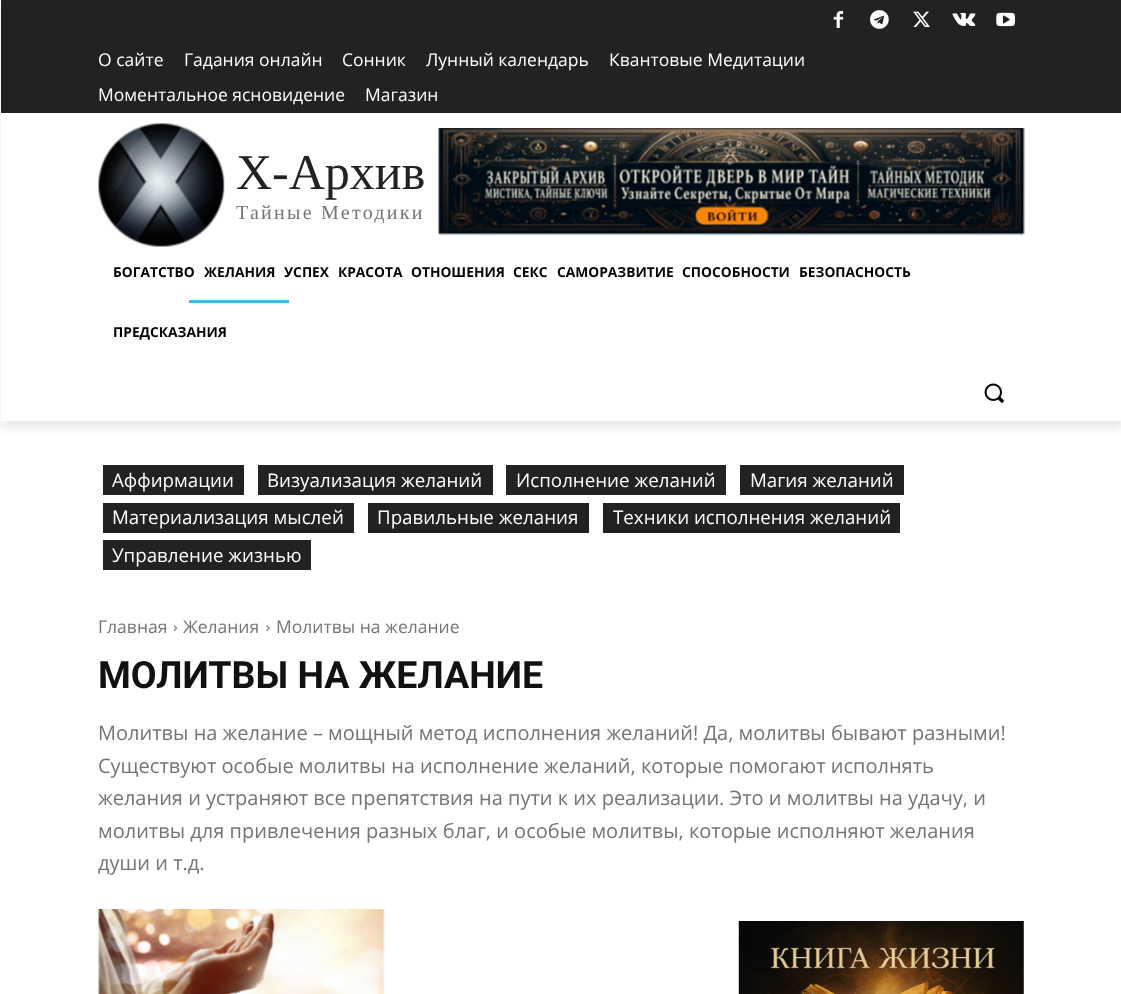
<?xml version="1.0" encoding="UTF-8"?>
<svg xmlns="http://www.w3.org/2000/svg" width="1121" height="994">
    <defs>
        <clipPath id="clip1"><path d="M 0 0 H 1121 V 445 H 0 Z M 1 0 H 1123 V 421 H 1 Z" clip-rule="evenodd"/></clipPath>
        <filter id="blur1" x="-50%" y="-200%" width="200%" height="500%"><feGaussianBlur stdDeviation="5"/></filter>
    </defs>
    <rect width="100%" height="100%" fill="#FFFFFF"/>
    <rect x="1" y="0" width="1120" height="113" fill="#222222"/>
    <image x="833" y="11" width="11" height="17" href="img_01.png"/>
    <image x="870" y="10" width="19" height="19" href="img_02.png"/>
    <image x="913" y="11" width="17" height="16" href="img_03.png"/>
    <image x="952" y="12" width="24" height="14" href="img_04.png"/>
    <image x="996" y="12" width="19" height="15" href="img_05.png"/>
    <image x="98" y="123" width="127" height="124" href="img_06.png"/>
    <image x="438" y="128" width="587" height="107" href="img_07.png"/>
    <g clip-path="url(#clip1)">
        <rect x="1" y="8" width="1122" height="421" fill="#000000" fill-opacity="0.08" filter="url(#blur1)"/>
    </g>
    <text x="98" y="66" font-family="Open Sans" font-size="17.5" fill="#FFFFFF">О сайте</text>
    <text x="184" y="66" font-family="Open Sans" font-size="17.5" fill="#FFFFFF">Гадания онлайн</text>
    <text x="342" y="66" font-family="Open Sans" font-size="17.5" fill="#FFFFFF">Сонник</text>
    <text x="426" y="66" font-family="Open Sans" font-size="17.5" fill="#FFFFFF">Лунный календарь</text>
    <text x="609" y="66" font-family="Open Sans" font-size="17.5" fill="#FFFFFF">Квантовые Медитации</text>
    <text x="98" y="101" font-family="Open Sans" font-size="17.5" fill="#FFFFFF">Моментальное ясновидение</text>
    <text x="365" y="101" font-family="Open Sans" font-size="17.5" fill="#FFFFFF">Магазин</text>
    <text x="236" y="189" font-family="Liberation Serif" font-size="50" fill="#222222">Х-Архив</text>
    <text x="236" y="219" font-family="Liberation Serif" font-size="20" letter-spacing="2.25" fill="#747474">Тайные Методики</text>
    <text x="113" y="277" font-family="Open Sans" font-size="13.75" font-weight="700" fill="#000000">БОГАТСТВО</text>
    <text x="204" y="277" font-family="Open Sans" font-size="13.75" font-weight="700" fill="#000000">ЖЕЛАНИЯ</text>
    <rect x="189" y="300" width="100" height="3" fill="#4DB2EC"/>
    <text x="284" y="277" font-family="Open Sans" font-size="13.75" font-weight="700" fill="#000000">УСПЕХ</text>
    <text x="338" y="277" font-family="Open Sans" font-size="13.75" font-weight="700" fill="#000000">КРАСОТА</text>
    <text x="411" y="277" font-family="Open Sans" font-size="13.75" font-weight="700" fill="#000000">ОТНОШЕНИЯ</text>
    <text x="513" y="277" font-family="Open Sans" font-size="13.75" font-weight="700" fill="#000000">СЕКС</text>
    <text x="557" y="277" font-family="Open Sans" font-size="13.75" font-weight="700" fill="#000000">САМОРАЗВИТИЕ</text>
    <text x="682" y="277" font-family="Open Sans" font-size="13.75" font-weight="700" fill="#000000">СПОСОБНОСТИ</text>
    <text x="799" y="277" font-family="Open Sans" font-size="13.75" font-weight="700" fill="#000000">БЕЗОПАСНОСТЬ</text>
    <text x="113" y="337" font-family="Open Sans" font-size="13.75" font-weight="700" fill="#000000">ПРЕДСКАЗАНИЯ</text>
    <image x="984" y="383" width="20" height="20" href="img_08.png"/>
    <rect x="103" y="465" width="141" height="30" fill="#222222"/>
    <text x="112" y="487" font-family="Open Sans" font-size="18.75" fill="#FFFFFF">Аффирмации</text>
    <rect x="258" y="465" width="235" height="30" fill="#222222"/>
    <text x="267" y="487" font-family="Open Sans" font-size="18.75" fill="#FFFFFF">Визуализация желаний</text>
    <rect x="506" y="465" width="220" height="30" fill="#222222"/>
    <text x="516" y="487" font-family="Open Sans" font-size="18.75" fill="#FFFFFF">Исполнение желаний</text>
    <rect x="740" y="465" width="164" height="30" fill="#222222"/>
    <text x="750" y="487" font-family="Open Sans" font-size="18.75" fill="#FFFFFF">Магия желаний</text>
    <rect x="103" y="503" width="251" height="30" fill="#222222"/>
    <text x="112" y="524" font-family="Open Sans" font-size="18.75" fill="#FFFFFF">Материализация мыслей</text>
    <rect x="368" y="503" width="221" height="30" fill="#222222"/>
    <text x="377" y="524" font-family="Open Sans" font-size="18.75" fill="#FFFFFF">Правильные желания</text>
    <rect x="603" y="503" width="297" height="30" fill="#222222"/>
    <text x="613" y="524" font-family="Open Sans" font-size="18.75" fill="#FFFFFF">Техники исполнения желаний</text>
    <rect x="103" y="540" width="208" height="30" fill="#222222"/>
    <text x="112" y="562" font-family="Open Sans" font-size="18.75" fill="#FFFFFF">Управление жизнью</text>
    <text x="98" y="633" font-family="Open Sans" font-size="17.5" fill="#747474">Главная</text>
    <image x="173" y="625" width="5" height="7" href="img_09.png"/>
    <text x="183" y="633" font-family="Open Sans" font-size="17.5" fill="#747474">Желания</text>
    <image x="266" y="625" width="4" height="7" href="img_10.png"/>
    <text x="276" y="633" font-family="Open Sans" font-size="17.5" fill="#747474">Молитвы на желание</text>
    <text x="98" y="688" font-family="Roboto" font-size="37.5" font-weight="700" fill="#111111">МОЛИТВЫ НА ЖЕЛАНИЕ</text>
    <text font-family="Open Sans" font-size="20" fill="#747474">
        <tspan x="98" y="740">Молитвы на желание – мощный метод исполнения желаний! Да, молитвы бывают разными!</tspan>
        <tspan x="98" y="773">Существуют особые молитвы на исполнение желаний, которые помогают исполнять</tspan>
        <tspan x="98" y="805">желания и устраняют все препятствия на пути к их реализации. Это и молитвы на удачу, и</tspan>
        <tspan x="98" y="838">молитвы для привлечения разных благ, и особые молитвы, которые исполняют желания</tspan>
        <tspan x="98" y="870">души и т.д.</tspan>
    </text>
    <image x="98" y="909" width="287" height="85" href="img_11.png"/>
    <image x="738" y="921" width="286" height="73" href="img_12.png"/>
</svg>
